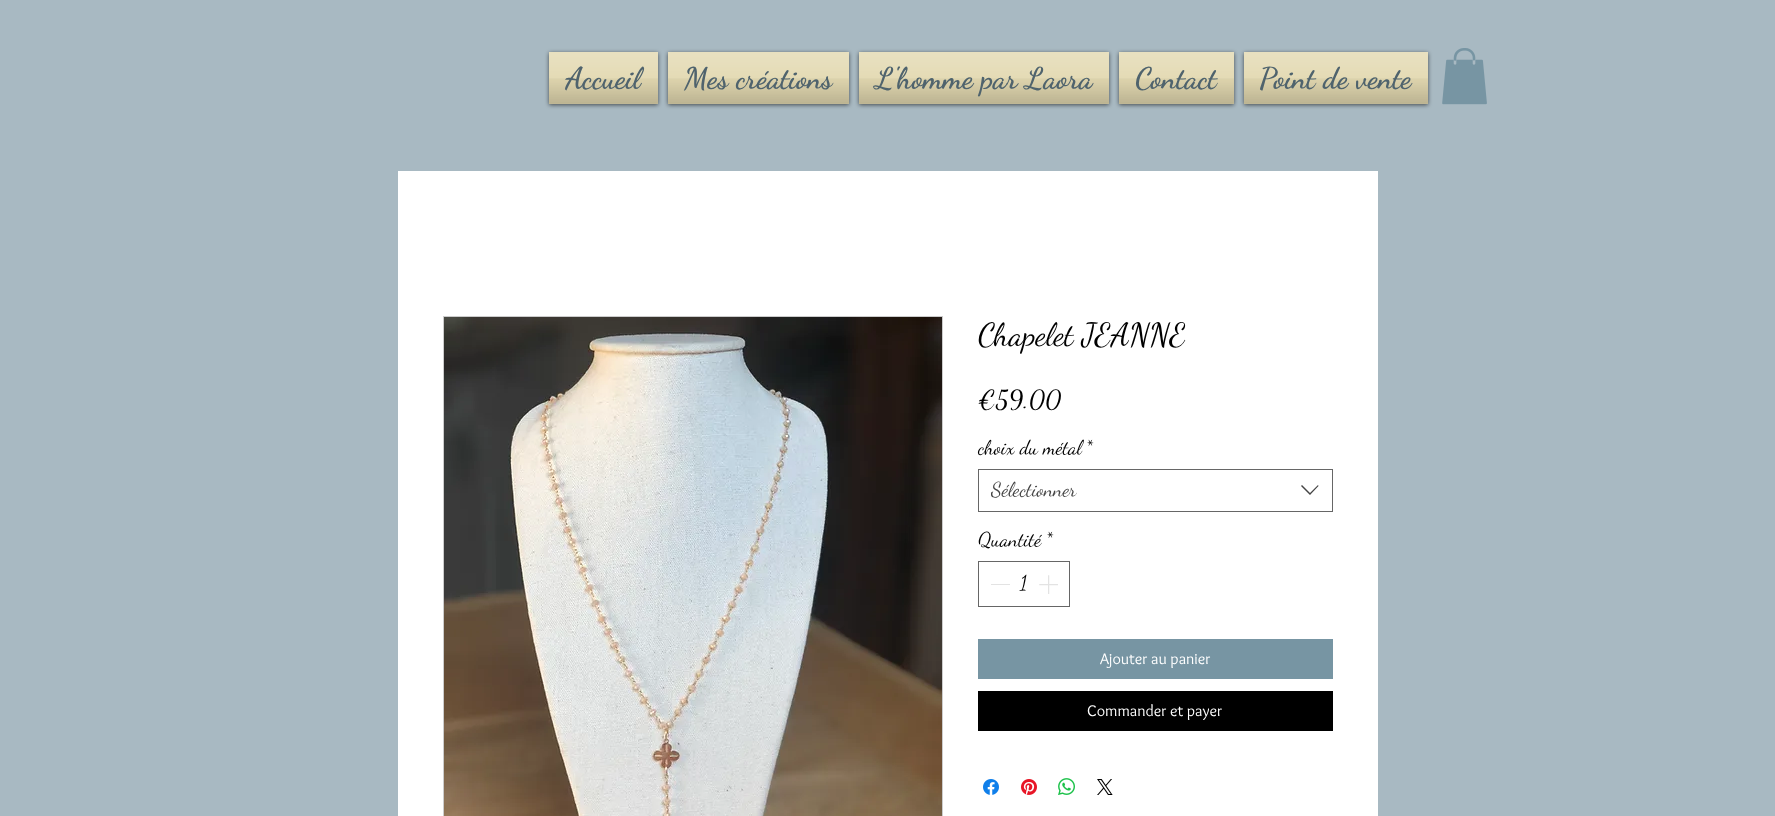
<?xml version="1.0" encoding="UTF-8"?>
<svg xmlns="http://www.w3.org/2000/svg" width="1775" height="816">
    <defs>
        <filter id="blur1" x="-50%" y="-200%" width="200%" height="500%"><feGaussianBlur stdDeviation="2"/></filter>
        <clipPath id="clip1"><rect x="991" y="478" width="300" height="25"/></clipPath>
    </defs>
    <rect width="100%" height="100%" fill="#A8B9C2"/>
    <rect x="549" y="53" width="109" height="52" fill="#000000" fill-opacity="0.6" filter="url(#blur1)"/>
    <rect x="549" y="52" width="109" height="52" fill="#E3D9B1"/>
    <image x="549" y="52" width="109" height="27" href="img_01.png"/>
    <image x="549" y="78" width="109" height="26" href="img_02.png"/>
    <text x="565" y="88" font-family="Dancing Script" font-size="30" font-weight="700" fill="#4F636D">Accueil</text>
    <rect x="668" y="53" width="181" height="52" fill="#000000" fill-opacity="0.6" filter="url(#blur1)"/>
    <rect x="668" y="52" width="181" height="52" fill="#E3D9B1"/>
    <image x="668" y="52" width="181" height="27" href="img_03.png"/>
    <image x="668" y="78" width="181" height="26" href="img_04.png"/>
    <text x="684" y="88" font-family="Dancing Script" font-size="30" font-weight="700" fill="#4F636D">Mes créations</text>
    <rect x="859" y="53" width="250" height="52" fill="#000000" fill-opacity="0.6" filter="url(#blur1)"/>
    <rect x="859" y="52" width="250" height="52" fill="#E3D9B1"/>
    <image x="859" y="52" width="250" height="27" href="img_05.png"/>
    <image x="859" y="78" width="250" height="26" href="img_06.png"/>
    <text x="875" y="88" font-family="Dancing Script" font-size="30" font-weight="700" fill="#4F636D">L'homme par Laora</text>
    <rect x="1119" y="53" width="115" height="52" fill="#000000" fill-opacity="0.6" filter="url(#blur1)"/>
    <rect x="1119" y="52" width="115" height="52" fill="#E3D9B1"/>
    <image x="1119" y="52" width="115" height="27" href="img_07.png"/>
    <image x="1119" y="78" width="115" height="26" href="img_08.png"/>
    <text x="1135" y="88" font-family="Dancing Script" font-size="30" font-weight="700" fill="#4F636D">Contact</text>
    <rect x="1244" y="53" width="184" height="52" fill="#000000" fill-opacity="0.6" filter="url(#blur1)"/>
    <rect x="1244" y="52" width="184" height="52" fill="#E3D9B1"/>
    <image x="1244" y="52" width="184" height="27" href="img_09.png"/>
    <image x="1244" y="78" width="184" height="26" href="img_10.png"/>
    <text x="1259" y="88" font-family="Dancing Script" font-size="30" font-weight="700" fill="#4F636D">Point de vente</text>
    <image x="1442" y="48" width="45" height="57" href="img_11.png"/>
    <rect x="398" y="171" width="980" height="645" fill="#FFFFFF"/>
    <rect x="443.5" y="316.5" width="499" height="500" fill="none" stroke="#CCCCCC"/>
    <image x="444" y="317" width="498" height="499" href="img_12.png"/>
    <text x="978" y="345" font-family="Dancing Script" font-size="32" fill="#000000">Chapelet JEANNE</text>
    <text x="978" y="408" font-family="Dancing Script" font-size="26" fill="#000000">€59.00</text>
    <text x="978" y="454" font-family="Dancing Script" font-size="20" fill="#000000">choix du métal</text>
    <text x="1085" y="454" font-family="Dancing Script" font-size="20" fill="#000000">*</text>
    <rect x="978.5" y="469.5" width="354" height="42" fill="none" stroke="#666666"/>
    <g clip-path="url(#clip1)">
        <text x="991" y="496" font-family="Dancing Script" font-size="20" fill="#444444">Sélectionner</text>
    </g>
    <path d="M 1318 485 L 1318.5 486 L 1310 495 L 1301 486 L 1302 485 L 1310 493 Z" fill="#444444" fill-rule="evenodd"/>
    <text x="978" y="546" font-family="Dancing Script" font-size="20" fill="#000000">Quantité</text>
    <text x="1045" y="546" font-family="Dancing Script" font-size="20" fill="#000000">*</text>
    <rect x="978.5" y="561.5" width="91" height="45" fill="none" stroke="#666666"/>
    <rect x="991" y="584" width="19" height="1" fill="#E3E3E3"/>
    <text x="1020" y="589" font-family="Dancing Script" font-size="20" fill="#000000">1</text>
    <image x="1039" y="575" width="19" height="19" href="img_13.png"/>
    <rect x="978" y="639" width="355" height="40" fill="#7795A3"/>
    <text x="1100" y="664" font-family="Overlock" font-size="16" fill="#FFFFFF">Ajouter au panier</text>
    <rect x="978" y="691" width="355" height="40" fill="#000000"/>
    <text x="1087" y="716" font-family="Overlock" font-size="16" fill="#FFFFFF">Commander et payer</text>
    <image x="983" y="779" width="16" height="16" href="img_14.png"/>
    <image x="1021" y="779" width="16" height="16" href="img_15.png"/>
    <image x="1058" y="778" width="17" height="17" href="img_16.png"/>
    <image x="1097" y="779" width="16" height="16" href="img_17.png"/>
</svg>
